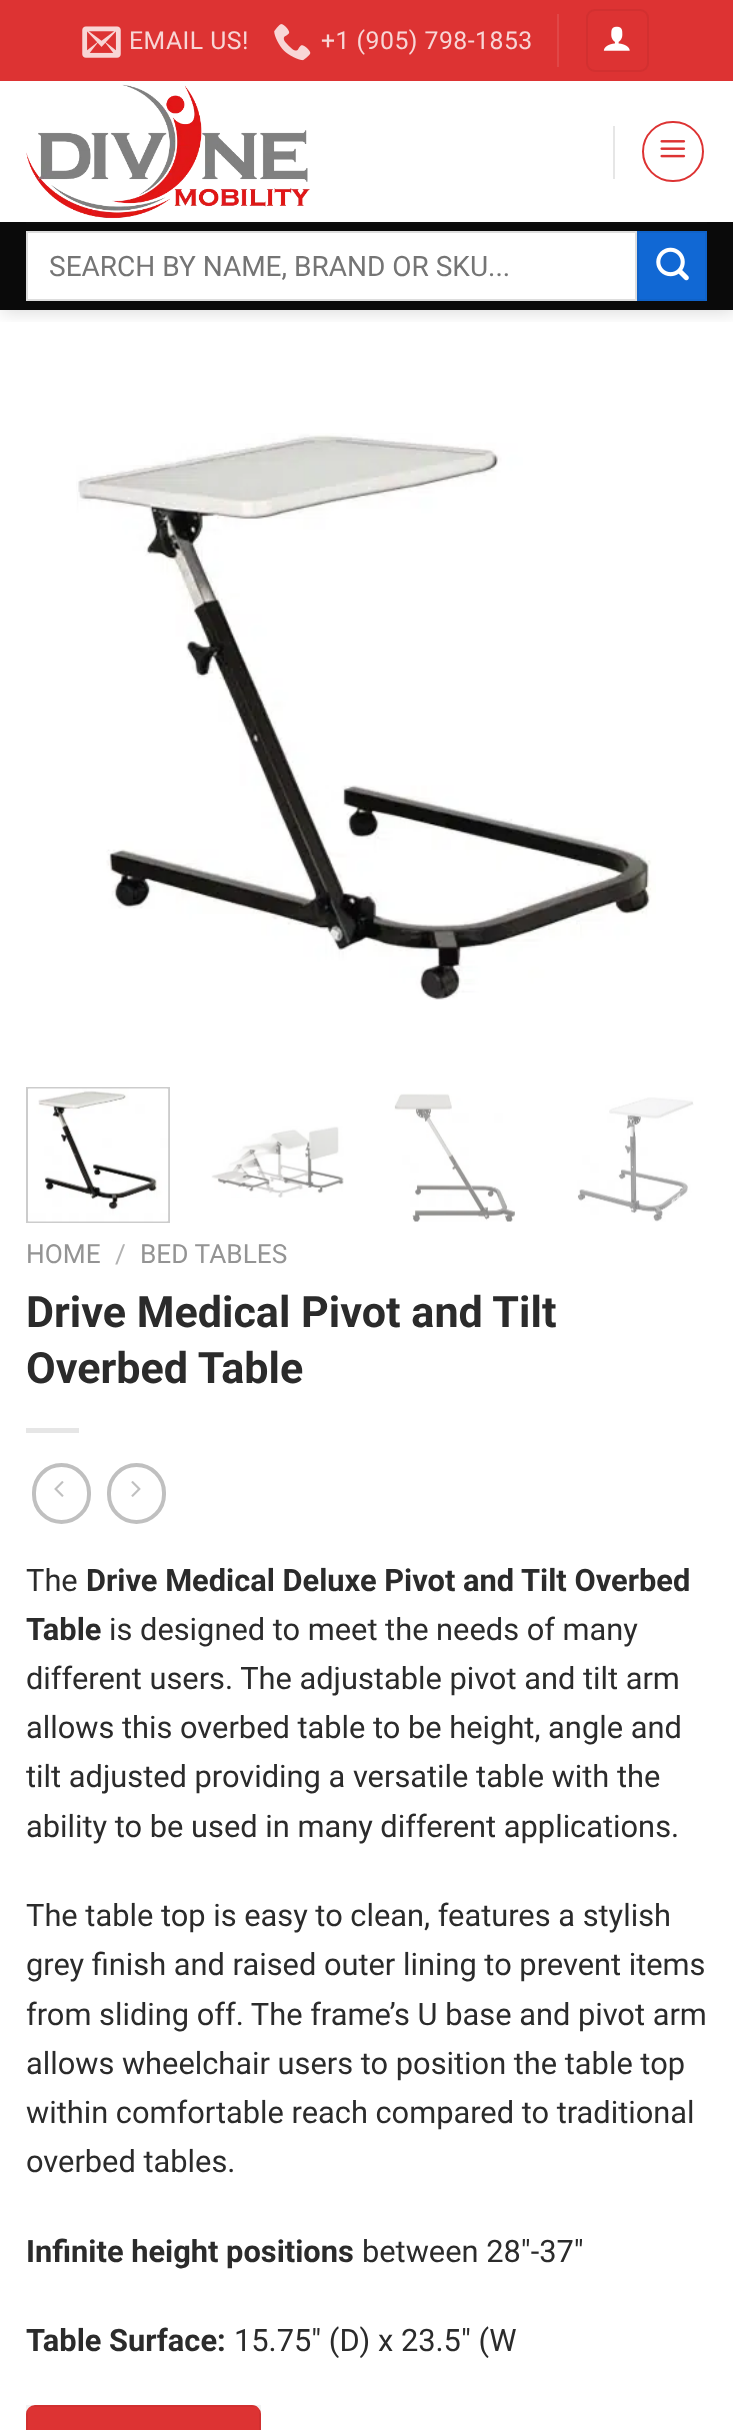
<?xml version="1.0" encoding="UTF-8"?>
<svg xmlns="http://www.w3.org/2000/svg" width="733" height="2430">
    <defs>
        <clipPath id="clip1"><rect x="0" y="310" width="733" height="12"/></clipPath>
        <filter id="blur1" x="-50%" y="-200%" width="200%" height="500%"><feGaussianBlur stdDeviation="9"/></filter>
    </defs>
    <rect width="100%" height="100%" fill="#FFFFFF"/>
    <g clip-path="url(#clip1)">
        <rect x="2" y="2" width="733" height="310" fill="#000000" fill-opacity="0.15" filter="url(#blur1)"/>
    </g>
    <rect x="0" y="0" width="733" height="81" fill="#DD3333"/>
    <image x="82" y="26" width="39" height="32" href="img_01.png"/>
    <text x="129" y="49" font-family="Roboto" font-size="24.75" letter-spacing="0.5" fill="#F8D6D6">EMAIL US!</text>
    <image x="274" y="24" width="37" height="37" href="img_02.png"/>
    <text x="321" y="49" font-family="Roboto" font-size="24.75" letter-spacing="0.5" fill="#F8D6D6">+1 (905) 798-1853</text>
    <rect x="557" y="14" width="2" height="53" fill="#E04747"/>
    <rect x="587" y="10" width="61" height="61" rx="8" fill="none" stroke="#D23030" stroke-width="2"/>
    <image x="603" y="26" width="27" height="25" href="img_03.png"/>
    <image x="26" y="84" width="284" height="135" href="img_04.png"/>
    <rect x="613" y="126" width="2" height="53" fill="#E6E6E6"/>
    <rect x="643" y="122" width="60" height="59" rx="29.5" fill="none" stroke="#DD3333" stroke-width="2"/>
    <image x="660" y="140" width="26" height="18" href="img_05.png"/>
    <rect x="0" y="222" width="733" height="88" fill="#0A0A0A"/>
    <rect x="26" y="222" width="681" height="2" fill="#0D0D0D"/>
    <rect x="27" y="232" width="609" height="68" fill="#FFFFFF" stroke="#DDDDDD" stroke-width="2"/>
    <text x="49" y="276" font-family="Roboto" font-size="28" fill="#757575">SEARCH BY NAME, BRAND OR SKU...</text>
    <rect x="638" y="232" width="68" height="68" fill="#1168D4" stroke="#1063C9" stroke-width="2"/>
    <image x="656" y="247" width="33" height="34" href="img_06.png"/>
    <image x="76" y="433" width="580" height="567" href="img_07.png"/>
    <rect x="27" y="1088" width="142" height="134" fill="none" stroke="#CCCCCC" stroke-width="2"/>
    <image x="28" y="1088" width="141" height="134" href="img_08.png"/>
    <image x="211" y="1126" width="133" height="72" href="img_09.png"/>
    <image x="394" y="1093" width="121" height="129" href="img_10.png"/>
    <image x="577" y="1097" width="117" height="125" href="img_11.png"/>
    <text x="26" y="1263" font-family="Roboto" font-size="26.25" fill="#949494">HOME</text>
    <text x="115" y="1263" font-family="Roboto" font-size="26.25" fill="#B2B2B2">/</text>
    <text x="140" y="1263" font-family="Roboto" font-size="26.25" fill="#949494">BED TABLES</text>
    <text font-family="Roboto" font-size="43.1" font-weight="700" fill="#2B2B2B">
        <tspan x="26" y="1327">Drive Medical Pivot and Tilt</tspan>
        <tspan x="26" y="1383">Overbed Table</tspan>
    </text>
    <rect x="26" y="1428" width="53" height="5" fill="#E6E6E6"/>
    <rect x="34" y="1465" width="55" height="57" rx="27.5" fill="none" stroke="#C0C0C0" stroke-width="4"/>
    <image x="54" y="1481" width="10" height="16" href="img_12.png"/>
    <rect x="109" y="1465" width="55" height="57" rx="27.5" fill="none" stroke="#C0C0C0" stroke-width="4"/>
    <image x="131" y="1481" width="10" height="16" href="img_13.png"/>
    <text x="26" y="1591" font-family="Roboto" font-size="30.8" fill="#2B2B2B">The</text>
    <text x="86" y="1591" font-family="Roboto" font-size="30.8" font-weight="700" fill="#2B2B2B">Drive Medical Deluxe Pivot and Tilt Overbed</text>
    <text x="26" y="1640" font-family="Roboto" font-size="30.8" font-weight="700" fill="#2B2B2B">Table</text>
    <text x="109" y="1640" font-family="Roboto" font-size="30.8" fill="#2B2B2B">is designed to meet the needs of many</text>
    <text font-family="Roboto" font-size="30.8" fill="#2B2B2B">
        <tspan x="26" y="1689">different users. The adjustable pivot and tilt arm</tspan>
        <tspan x="26" y="1738">allows this overbed table to be height, angle and</tspan>
        <tspan x="26" y="1787">tilt adjusted providing a versatile table with the</tspan>
        <tspan x="26" y="1837">ability to be used in many different applications.</tspan>
    </text>
    <text font-family="Roboto" font-size="30.8" fill="#2B2B2B">
        <tspan x="26" y="1926">The table top is easy to clean, features a stylish</tspan>
        <tspan x="26" y="1975">grey finish and raised outer lining to prevent items</tspan>
        <tspan x="26" y="2025">from sliding off. The frame’s U base and pivot arm</tspan>
        <tspan x="26" y="2074">allows wheelchair users to position the table top</tspan>
        <tspan x="26" y="2123">within comfortable reach compared to traditional</tspan>
        <tspan x="26" y="2172">overbed tables.</tspan>
    </text>
    <text x="26" y="2262" font-family="Roboto" font-size="30.8" font-weight="700" fill="#2B2B2B">Infinite height positions</text>
    <text x="362" y="2262" font-family="Roboto" font-size="30.8" fill="#2B2B2B">between 28″-37″</text>
    <text x="26" y="2351" font-family="Roboto" font-size="30.8" font-weight="700" fill="#2B2B2B">Table Surface:</text>
    <text x="234" y="2351" font-family="Roboto" font-size="30.8" fill="#2B2B2B">15.75″ (D) x 23.5″ (W</text>
    <rect x="26" y="2405" width="235" height="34" rx="9" fill="#DD3333"/>
    <rect x="27" y="2406" width="233" height="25" fill="none" stroke="#000000" stroke-opacity="0.05" stroke-width="2"/>
</svg>
